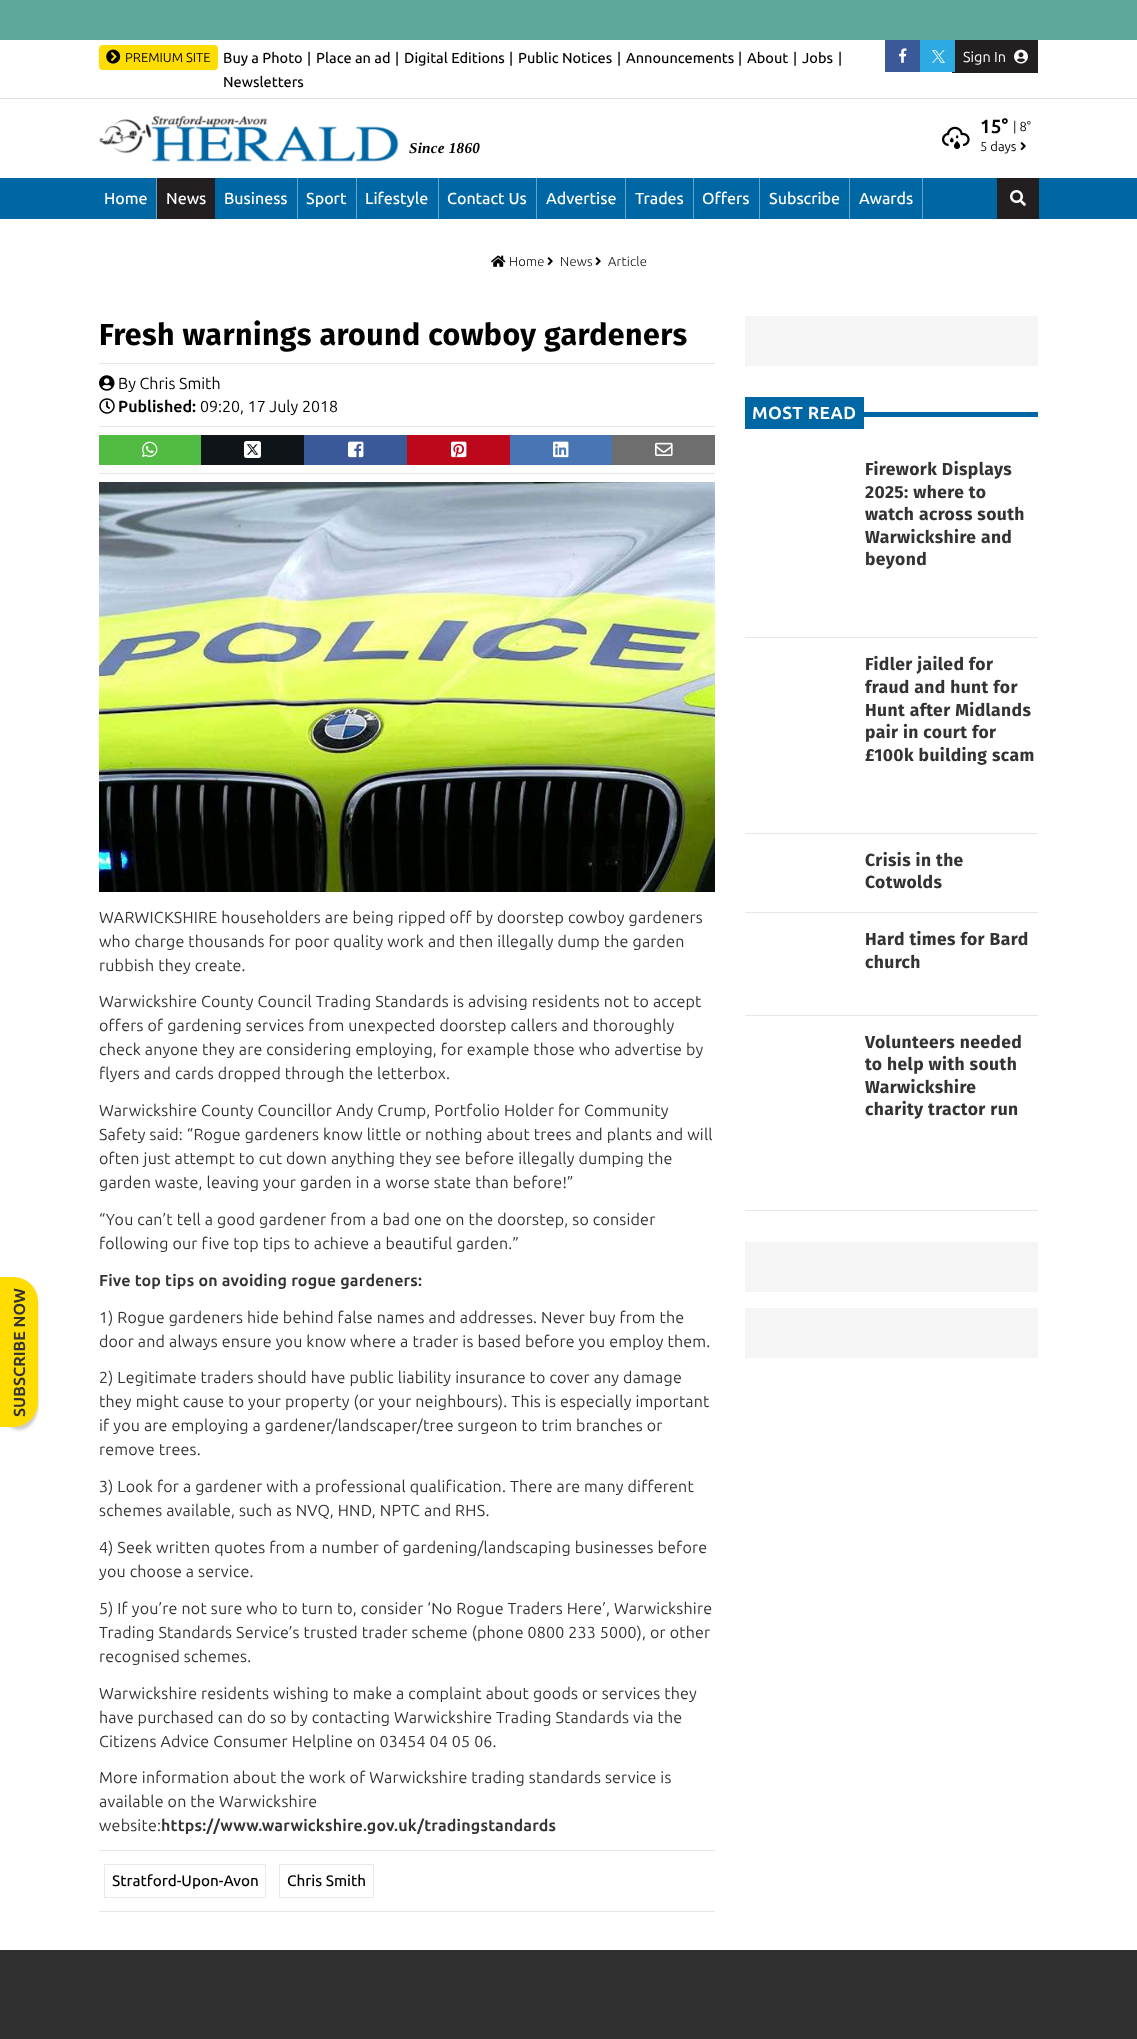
<?xml version="1.0" encoding="UTF-8"?>
<svg xmlns="http://www.w3.org/2000/svg" width="1137" height="2039">
    <defs>
        <filter id="blur1" x="-50%" y="-200%" width="200%" height="500%"><feGaussianBlur stdDeviation="1.5"/></filter>
    </defs>
    <rect width="100%" height="100%" fill="#FFFFFF"/>
    <rect x="0" y="0" width="1137" height="40" fill="#5EA89B"/>
    <rect x="0" y="98" width="1137" height="1" fill="#DDDDDD"/>
    <rect x="99" y="45" width="119" height="25" rx="4" fill="#FFDD00"/>
    <image x="106" y="49" width="15" height="15" href="img_01.png"/>
    <text x="125" y="62" font-family="Ubuntu" font-size="13" fill="#000000">PREMIUM SITE</text>
    <text x="223" y="63" font-family="Ubuntu" font-size="14.5" font-weight="500" fill="#000000">Buy a Photo</text>
    <text x="307" y="63" font-family="Ubuntu" font-size="14.5" font-weight="500" fill="#000000">|</text>
    <text x="316" y="63" font-family="Ubuntu" font-size="14.5" font-weight="500" fill="#000000">Place an ad</text>
    <text x="395" y="63" font-family="Ubuntu" font-size="14.5" font-weight="500" fill="#000000">|</text>
    <text x="404" y="63" font-family="Ubuntu" font-size="14.5" font-weight="500" fill="#000000">Digital Editions</text>
    <text x="509" y="63" font-family="Ubuntu" font-size="14.5" font-weight="500" fill="#000000">|</text>
    <text x="518" y="63" font-family="Ubuntu" font-size="14.5" font-weight="500" fill="#000000">Public Notices</text>
    <text x="617" y="63" font-family="Ubuntu" font-size="14.5" font-weight="500" fill="#000000">|</text>
    <text x="626" y="63" font-family="Ubuntu" font-size="14.5" font-weight="500" fill="#000000">Announcements</text>
    <text x="738" y="63" font-family="Ubuntu" font-size="14.5" font-weight="500" fill="#000000">|</text>
    <text x="747" y="63" font-family="Ubuntu" font-size="14.5" font-weight="500" fill="#000000">About</text>
    <text x="793" y="63" font-family="Ubuntu" font-size="14.5" font-weight="500" fill="#000000">|</text>
    <text x="802" y="63" font-family="Ubuntu" font-size="14.5" font-weight="500" fill="#000000">Jobs</text>
    <text x="838" y="63" font-family="Ubuntu" font-size="14.5" font-weight="500" fill="#000000">|</text>
    <text x="223" y="87" font-family="Ubuntu" font-size="14.5" font-weight="500" fill="#000000">Newsletters</text>
    <rect x="885" y="40" width="35" height="32" fill="#3B5998"/>
    <image x="899" y="48" width="8" height="15" href="img_02.png"/>
    <rect x="952" y="40" width="86" height="33" fill="#231F20"/>
    <rect x="920" y="40" width="35" height="32" fill="#2CAAE1"/>
    <image x="932" y="50" width="13" height="13" href="img_03.png"/>
    <text x="963" y="62" font-family="Ubuntu" font-size="14.5" fill="#FFFFFF">Sign In</text>
    <image x="1014" y="49" width="14" height="15" href="img_04.png"/>
    <image x="99" y="115" width="300" height="47" href="img_05.png"/>
    <text x="409" y="153" font-family="Liberation Serif" font-size="15.25" font-weight="700" font-style="italic" letter-spacing="0.2" fill="#000000">Since 1860</text>
    <image x="942" y="126" width="28" height="23" href="img_06.png"/>
    <text x="980" y="133" font-family="Ubuntu" font-size="19" font-weight="700" fill="#000000">15°</text>
    <text x="1013" y="131" font-family="Ubuntu" font-size="13" fill="#000000">| 8°</text>
    <text x="980" y="151" font-family="Ubuntu" font-size="13" fill="#000000">5 days</text>
    <image x="1020" y="142" width="6" height="9" href="img_07.png"/>
    <rect x="0" y="178" width="1137" height="41" fill="#0067A5"/>
    <rect x="156" y="178" width="1" height="41" fill="#66A4C9"/>
    <text x="104" y="204" font-family="Ubuntu" font-size="16" font-weight="500" fill="#FFFFFF">Home</text>
    <rect x="157" y="178" width="58" height="41" fill="#231F20"/>
    <text x="166" y="204" font-family="Ubuntu" font-size="16" font-weight="500" fill="#FFFFFF">News</text>
    <rect x="297" y="178" width="1" height="41" fill="#66A4C9"/>
    <text x="224" y="204" font-family="Ubuntu" font-size="16" font-weight="500" fill="#FFFFFF">Business</text>
    <rect x="356" y="178" width="1" height="41" fill="#66A4C9"/>
    <text x="306" y="204" font-family="Ubuntu" font-size="16" font-weight="500" fill="#FFFFFF">Sport</text>
    <rect x="438" y="178" width="1" height="41" fill="#66A4C9"/>
    <text x="365" y="204" font-family="Ubuntu" font-size="16" font-weight="500" fill="#FFFFFF">Lifestyle</text>
    <rect x="536" y="178" width="1" height="41" fill="#66A4C9"/>
    <text x="447" y="204" font-family="Ubuntu" font-size="16" font-weight="500" fill="#FFFFFF">Contact Us</text>
    <rect x="625" y="178" width="1" height="41" fill="#66A4C9"/>
    <text x="546" y="204" font-family="Ubuntu" font-size="16" font-weight="500" fill="#FFFFFF">Advertise</text>
    <rect x="693" y="178" width="1" height="41" fill="#66A4C9"/>
    <text x="635" y="204" font-family="Ubuntu" font-size="16" font-weight="500" fill="#FFFFFF">Trades</text>
    <rect x="759" y="178" width="1" height="41" fill="#66A4C9"/>
    <text x="702" y="204" font-family="Ubuntu" font-size="16" font-weight="500" fill="#FFFFFF">Offers</text>
    <rect x="849" y="178" width="1" height="41" fill="#66A4C9"/>
    <text x="769" y="204" font-family="Ubuntu" font-size="16" font-weight="500" fill="#FFFFFF">Subscribe</text>
    <rect x="922" y="178" width="1" height="41" fill="#66A4C9"/>
    <text x="859" y="204" font-family="Ubuntu" font-size="16" font-weight="500" fill="#FFFFFF">Awards</text>
    <rect x="997" y="178" width="42" height="41" fill="#231F20"/>
    <image x="1010" y="190" width="16" height="16" href="img_08.png"/>
    <image x="491" y="255" width="15" height="12" href="img_09.png"/>
    <text x="509" y="266" font-family="Ubuntu" font-size="13" font-weight="300" letter-spacing="0.2" fill="#000000">Home</text>
    <image x="547" y="257" width="6" height="9" href="img_10.png"/>
    <text x="560" y="266" font-family="Ubuntu" font-size="13" font-weight="300" letter-spacing="0.2" fill="#000000">News</text>
    <image x="595" y="257" width="6" height="9" href="img_10.png"/>
    <text x="608" y="266" font-family="Ubuntu" font-size="13" font-weight="300" letter-spacing="0.2" fill="#000000">Article</text>
    <rect x="0" y="1280" width="38" height="150" rx="25" fill="#000000" fill-opacity="0.2" filter="url(#blur1)"/>
    <path d="M 0 1277 H 13 C 27 1277 38 1288 38 1302 V 1402 C 38 1416 27 1427 13 1427 H 0 Z" fill="#FFDD00"/>
    <text x="25" y="1417" transform="rotate(-90 25 1417)" font-family="Ubuntu" font-size="16" font-weight="700" fill="#333333">SUBSCRIBE NOW</text>
    <text x="99" y="345" font-family="Fira Sans" font-size="30.4" font-weight="700" letter-spacing="0.4" fill="#000000">Fresh warnings around cowboy gardeners</text>
    <rect x="99" y="363" width="616" height="1" fill="#E6E6E6"/>
    <image x="99" y="375" width="16" height="16" href="img_11.png"/>
    <text x="118" y="389" font-family="Ubuntu" font-size="16" fill="#000000">By Chris Smith</text>
    <image x="99" y="398" width="16" height="16" href="img_12.png"/>
    <text x="118" y="412" font-family="Ubuntu" font-size="16" font-weight="700" fill="#000000">Published:</text>
    <text x="200" y="412" font-family="Ubuntu" font-size="16" fill="#000000">09:20, 17 July 2018</text>
    <rect x="99" y="426" width="616" height="1" fill="#E6E6E6"/>
    <rect x="99" y="435" width="102" height="30" fill="#52BB44"/>
    <image x="142" y="441" width="16" height="16" href="img_13.png"/>
    <rect x="201" y="435" width="103" height="30" fill="#0F1419"/>
    <image x="244" y="441" width="17" height="17" href="img_14.png"/>
    <rect x="304" y="435" width="103" height="30" fill="#3B5998"/>
    <image x="348" y="441" width="16" height="17" href="img_15.png"/>
    <rect x="407" y="435" width="103" height="30" fill="#BD081C"/>
    <image x="451" y="441" width="16" height="17" href="img_16.png"/>
    <rect x="510" y="435" width="102" height="30" fill="#4875B4"/>
    <image x="553" y="441" width="16" height="17" href="img_17.png"/>
    <rect x="612" y="435" width="103" height="30" fill="#6E6E6E"/>
    <image x="655" y="442" width="18" height="14" href="img_18.png"/>
    <rect x="99" y="473" width="616" height="1" fill="#E6E6E6"/>
    <image x="99" y="482" width="616" height="410" href="img_19.png"/>
    <text font-family="Ubuntu" font-size="16" letter-spacing="0.2" fill="#333333">
        <tspan x="99" y="923">WARWICKSHIRE householders are being ripped off by doorstep cowboy gardeners</tspan>
        <tspan x="99" y="947">who charge thousands for poor quality work and then illegally dump the garden</tspan>
        <tspan x="99" y="971">rubbish they create.</tspan>
    </text>
    <text font-family="Ubuntu" font-size="16" letter-spacing="0.2" fill="#333333">
        <tspan x="99" y="1007">Warwickshire County Council Trading Standards is advising residents not to accept</tspan>
        <tspan x="99" y="1031">offers of gardening services from unexpected doorstep callers and thoroughly</tspan>
        <tspan x="99" y="1055">check anyone they are considering employing, for example those who advertise by</tspan>
        <tspan x="99" y="1079">flyers and cards dropped through the letterbox.</tspan>
    </text>
    <text font-family="Ubuntu" font-size="16" letter-spacing="0.2" fill="#333333">
        <tspan x="99" y="1116">Warwickshire County Councillor Andy Crump, Portfolio Holder for Community</tspan>
        <tspan x="99" y="1140">Safety said: “Rogue gardeners know little or nothing about trees and plants and will</tspan>
        <tspan x="99" y="1164">often just attempt to cut down anything they see before illegally dumping the</tspan>
        <tspan x="99" y="1188">garden waste, leaving your garden in a worse state than before!”</tspan>
    </text>
    <text font-family="Ubuntu" font-size="16" letter-spacing="0.2" fill="#333333">
        <tspan x="99" y="1225">“You can’t tell a good gardener from a bad one on the doorstep, so consider</tspan>
        <tspan x="99" y="1249">following our five top tips to achieve a beautiful garden.”</tspan>
    </text>
    <text x="99" y="1286" font-family="Ubuntu" font-size="16" font-weight="700" letter-spacing="0.2" fill="#333333">Five top tips on avoiding rogue gardeners:</text>
    <text font-family="Ubuntu" font-size="16" letter-spacing="0.2" fill="#333333">
        <tspan x="99" y="1323">1) Rogue gardeners hide behind false names and addresses. Never buy from the</tspan>
        <tspan x="99" y="1347">door and always ensure you know where a trader is based before you employ them.</tspan>
    </text>
    <text font-family="Ubuntu" font-size="16" letter-spacing="0.2" fill="#333333">
        <tspan x="99" y="1383">2) Legitimate traders should have public liability insurance to cover any damage</tspan>
        <tspan x="99" y="1407">they might cause to your property (or your neighbours). This is especially important</tspan>
        <tspan x="99" y="1431">if you are employing a gardener/landscaper/tree surgeon to trim branches or</tspan>
        <tspan x="99" y="1455">remove trees.</tspan>
    </text>
    <text font-family="Ubuntu" font-size="16" letter-spacing="0.2" fill="#333333">
        <tspan x="99" y="1492">3) Look for a gardener with a professional qualification. There are many different</tspan>
        <tspan x="99" y="1516">schemes available, such as NVQ, HND, NPTC and RHS.</tspan>
    </text>
    <text font-family="Ubuntu" font-size="16" letter-spacing="0.2" fill="#333333">
        <tspan x="99" y="1553">4) Seek written quotes from a number of gardening/landscaping businesses before</tspan>
        <tspan x="99" y="1577">you choose a service.</tspan>
    </text>
    <text font-family="Ubuntu" font-size="16" letter-spacing="0.2" fill="#333333">
        <tspan x="99" y="1614">5) If you’re not sure who to turn to, consider ‘No Rogue Traders Here’, Warwickshire</tspan>
        <tspan x="99" y="1638">Trading Standards Service’s trusted trader scheme (phone 0800 233 5000), or other</tspan>
        <tspan x="99" y="1662">recognised schemes.</tspan>
    </text>
    <text font-family="Ubuntu" font-size="16" letter-spacing="0.2" fill="#333333">
        <tspan x="99" y="1699">Warwickshire residents wishing to make a complaint about goods or services they</tspan>
        <tspan x="99" y="1723">have purchased can do so by contacting Warwickshire Trading Standards via the</tspan>
        <tspan x="99" y="1747">Citizens Advice Consumer Helpline on 03454 04 05 06.</tspan>
    </text>
    <text font-family="Ubuntu" font-size="16" letter-spacing="0.2" fill="#333333">
        <tspan x="99" y="1783">More information about the work of Warwickshire trading standards service is</tspan>
        <tspan x="99" y="1807">available on the Warwickshire</tspan>
        <tspan x="99" y="1831">website:</tspan>
    </text>
    <text x="161" y="1831" font-family="Ubuntu" font-size="16" font-weight="700" letter-spacing="0.2" fill="#333333">https://www.warwickshire.gov.uk/tradingstandards</text>
    <rect x="99" y="1850" width="616" height="1" fill="#E6E6E6"/>
    <rect x="104.5" y="1864.5" width="161" height="33" fill="none" stroke="#E7E9EA"/>
    <text x="112" y="1886" font-family="Ubuntu" font-size="15.25" font-weight="500" fill="#000000">Stratford-Upon-Avon</text>
    <rect x="279.5" y="1864.5" width="94" height="33" fill="none" stroke="#E7E9EA"/>
    <text x="287" y="1886" font-family="Ubuntu" font-size="15.25" font-weight="500" fill="#000000">Chris Smith</text>
    <rect x="99" y="1911" width="616" height="1" fill="#E6E6E6"/>
    <rect x="745" y="316" width="293" height="50" fill="#F5F5F5"/>
    <rect x="864" y="412" width="174" height="5" fill="#0067A5"/>
    <rect x="745" y="397" width="119" height="32" fill="#0067A5"/>
    <text x="752" y="419" font-family="Ubuntu" font-size="17.5" font-weight="700" letter-spacing="0.4" fill="#FFFFFF">MOST READ</text>
    <text font-family="Fira Sans" font-size="17.5" font-weight="700" letter-spacing="0.4" fill="#333333">
        <tspan x="865" y="475">Firework Displays</tspan>
        <tspan x="865" y="498">2025: where to</tspan>
        <tspan x="865" y="520">watch across south</tspan>
        <tspan x="865" y="543">Warwickshire and</tspan>
        <tspan x="865" y="565">beyond</tspan>
    </text>
    <rect x="745" y="637" width="293" height="1" fill="#E6E6E6"/>
    <text font-family="Fira Sans" font-size="17.5" font-weight="700" letter-spacing="0.4" fill="#333333">
        <tspan x="865" y="670">Fidler jailed for</tspan>
        <tspan x="865" y="693">fraud and hunt for</tspan>
        <tspan x="865" y="716">Hunt after Midlands</tspan>
        <tspan x="865" y="738">pair in court for</tspan>
        <tspan x="865" y="761">£100k building scam</tspan>
    </text>
    <rect x="745" y="833" width="293" height="1" fill="#E6E6E6"/>
    <text font-family="Fira Sans" font-size="17.5" font-weight="700" letter-spacing="0.4" fill="#333333">
        <tspan x="865" y="866">Crisis in the</tspan>
        <tspan x="865" y="888">Cotwolds</tspan>
    </text>
    <rect x="745" y="912" width="293" height="1" fill="#E6E6E6"/>
    <text font-family="Fira Sans" font-size="17.5" font-weight="700" letter-spacing="0.4" fill="#333333">
        <tspan x="865" y="945">Hard times for Bard</tspan>
        <tspan x="865" y="968">church</tspan>
    </text>
    <rect x="745" y="1015" width="293" height="1" fill="#E6E6E6"/>
    <text font-family="Fira Sans" font-size="17.5" font-weight="700" letter-spacing="0.4" fill="#333333">
        <tspan x="865" y="1048">Volunteers needed</tspan>
        <tspan x="865" y="1070">to help with south</tspan>
        <tspan x="865" y="1093">Warwickshire</tspan>
        <tspan x="865" y="1115">charity tractor run</tspan>
    </text>
    <rect x="745" y="1210" width="293" height="1" fill="#E6E6E6"/>
    <rect x="745" y="1242" width="293" height="50" fill="#F5F5F5"/>
    <rect x="745" y="1308" width="293" height="50" fill="#F5F5F5"/>
    <rect x="0" y="1950" width="1137" height="89" fill="#303030"/>
</svg>
